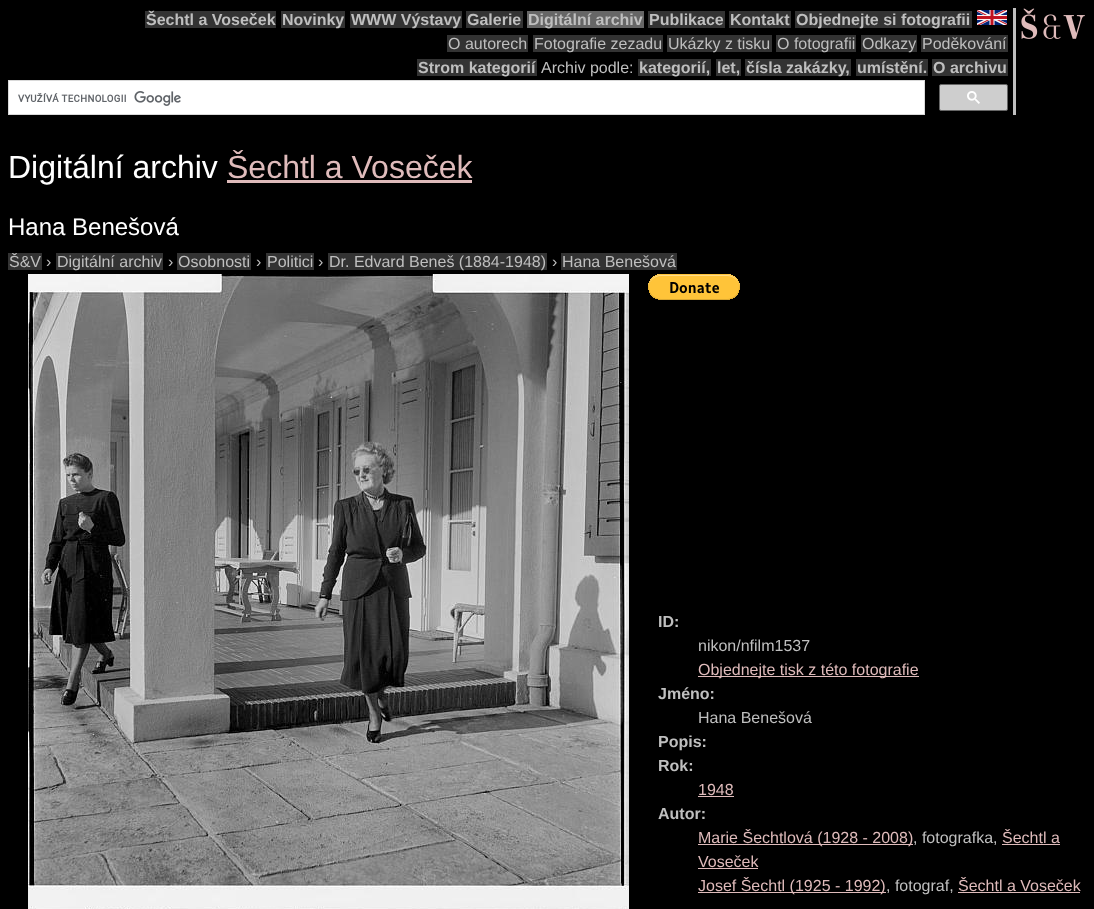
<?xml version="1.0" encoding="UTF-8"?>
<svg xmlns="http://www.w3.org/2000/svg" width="1094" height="909">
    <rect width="100%" height="100%" fill="#000000"/>
    <rect x="1013" y="8" width="3" height="107" fill="#BFBFBF"/>
    <rect x="145" y="11" width="131" height="17" fill="#333333"/>
    <text x="146" y="25" font-family="Liberation Sans" font-size="16" font-weight="700" fill="#BFBFBF">Šechtl a Voseček</text>
    <rect x="281" y="11" width="64" height="17" fill="#333333"/>
    <text x="282" y="25" font-family="Liberation Sans" font-size="16" font-weight="700" fill="#BFBFBF">Novinky</text>
    <rect x="350" y="11" width="112" height="17" fill="#333333"/>
    <text x="351" y="25" font-family="Liberation Sans" font-size="16" font-weight="700" fill="#BFBFBF">WWW Výstavy</text>
    <rect x="466" y="11" width="57" height="17" fill="#333333"/>
    <text x="467" y="25" font-family="Liberation Sans" font-size="16" font-weight="700" fill="#BFBFBF">Galerie</text>
    <rect x="527" y="11" width="117" height="17" fill="#666666"/>
    <text x="528" y="25" font-family="Liberation Sans" font-size="16" font-weight="700" fill="#BFBFBF">Digitální archiv</text>
    <rect x="648" y="11" width="77" height="17" fill="#333333"/>
    <text x="649" y="25" font-family="Liberation Sans" font-size="16" font-weight="700" fill="#BFBFBF">Publikace</text>
    <rect x="729" y="11" width="62" height="17" fill="#333333"/>
    <text x="730" y="25" font-family="Liberation Sans" font-size="16" font-weight="700" fill="#BFBFBF">Kontakt</text>
    <rect x="795" y="11" width="177" height="17" fill="#333333"/>
    <text x="796" y="25" font-family="Liberation Sans" font-size="16" font-weight="700" fill="#BFBFBF">Objednejte si fotografii</text>
    <image x="977" y="10" width="30" height="15" href="img_01.png"/>
    <rect x="447" y="35" width="81" height="17" fill="#333333"/>
    <text x="448" y="49" font-family="Liberation Sans" font-size="16" fill="#BFBFBF">O autorech</text>
    <rect x="533" y="35" width="130" height="17" fill="#333333"/>
    <text x="534" y="49" font-family="Liberation Sans" font-size="16" fill="#BFBFBF">Fotografie zezadu</text>
    <rect x="667" y="35" width="105" height="17" fill="#333333"/>
    <text x="668" y="49" font-family="Liberation Sans" font-size="16" fill="#BFBFBF">Ukázky z tisku</text>
    <rect x="776" y="35" width="80" height="17" fill="#333333"/>
    <text x="777" y="49" font-family="Liberation Sans" font-size="16" fill="#BFBFBF">O fotografii</text>
    <rect x="861" y="35" width="56" height="17" fill="#333333"/>
    <text x="862" y="49" font-family="Liberation Sans" font-size="16" fill="#BFBFBF">Odkazy</text>
    <rect x="921" y="35" width="87" height="17" fill="#333333"/>
    <text x="922" y="49" font-family="Liberation Sans" font-size="16" fill="#BFBFBF">Poděkování</text>
    <rect x="417" y="59" width="120" height="17" fill="#333333"/>
    <text x="418" y="73" font-family="Liberation Sans" font-size="16" font-weight="700" fill="#BFBFBF">Strom kategorií</text>
    <text x="541" y="73" font-family="Liberation Sans" font-size="16" fill="#BFBFBF">Archiv podle:</text>
    <rect x="638" y="59" width="73" height="17" fill="#333333"/>
    <text x="639" y="73" font-family="Liberation Sans" font-size="16" font-weight="700" fill="#BFBFBF">kategorií,</text>
    <rect x="716" y="59" width="25" height="17" fill="#333333"/>
    <text x="717" y="73" font-family="Liberation Sans" font-size="16" font-weight="700" fill="#BFBFBF">let,</text>
    <rect x="745" y="59" width="106" height="17" fill="#333333"/>
    <text x="746" y="73" font-family="Liberation Sans" font-size="16" font-weight="700" fill="#BFBFBF">čísla zakázky,</text>
    <rect x="856" y="59" width="72" height="17" fill="#333333"/>
    <text x="857" y="73" font-family="Liberation Sans" font-size="16" font-weight="700" fill="#BFBFBF">umístění.</text>
    <rect x="932" y="59" width="76" height="17" fill="#333333"/>
    <text x="933" y="73" font-family="Liberation Sans" font-size="16" font-weight="700" fill="#BFBFBF">O archivu</text>
    <rect x="8.5" y="80.5" width="916" height="34" fill="#FFFFFF" stroke="#D9D9D9"/>
    <image x="18" y="91" width="163" height="15" href="img_02.png"/>
    <rect x="939.5" y="84.5" width="68" height="26" rx="1.5" fill="#CECECE" stroke="#666666"/>
    <image x="967" y="91" width="13" height="13" href="img_03.png"/>
    <image x="1021" y="8" width="64" height="31" href="img_04.png"/>
    <text x="8" y="178" font-family="Liberation Sans" font-size="32" fill="#FFFFFF">Digitální archiv</text>
    <text x="227" y="178" font-family="Liberation Sans" font-size="32" fill="#DFBBBB">Šechtl a Voseček</text>
    <rect x="227" y="180" width="245" height="3" fill="#DFBBBB"/>
    <text x="8" y="235" font-family="Liberation Sans" font-size="24" fill="#FFFFFF">Hana Benešová</text>
    <rect x="8" y="253" width="34" height="17" fill="#333333"/>
    <text x="9" y="267" font-family="Liberation Sans" font-size="16" fill="#BFBFBF">Š&amp;V</text>
    <text x="46" y="267" font-family="Liberation Sans" font-size="16" fill="#BFBFBF">›</text>
    <rect x="56" y="253" width="107" height="17" fill="#333333"/>
    <text x="57" y="267" font-family="Liberation Sans" font-size="16" fill="#BFBFBF">Digitální archiv</text>
    <text x="168" y="267" font-family="Liberation Sans" font-size="16" fill="#BFBFBF">›</text>
    <rect x="177" y="253" width="74" height="17" fill="#333333"/>
    <text x="178" y="267" font-family="Liberation Sans" font-size="16" fill="#BFBFBF">Osobnosti</text>
    <text x="256" y="267" font-family="Liberation Sans" font-size="16" fill="#BFBFBF">›</text>
    <rect x="266" y="253" width="48" height="17" fill="#333333"/>
    <text x="267" y="267" font-family="Liberation Sans" font-size="16" fill="#BFBFBF">Politici</text>
    <text x="318" y="267" font-family="Liberation Sans" font-size="16" fill="#BFBFBF">›</text>
    <rect x="328" y="253" width="219" height="17" fill="#333333"/>
    <text x="329" y="267" font-family="Liberation Sans" font-size="16" fill="#BFBFBF">Dr. Edvard Beneš (1884-1948)</text>
    <text x="552" y="267" font-family="Liberation Sans" font-size="16" fill="#BFBFBF">›</text>
    <rect x="561" y="253" width="116" height="17" fill="#333333"/>
    <text x="562" y="267" font-family="Liberation Sans" font-size="16" fill="#BFBFBF">Hana Benešová</text>
    <image x="28" y="274" width="601" height="635" href="img_05.png"/>
    <image x="648" y="274" width="92" height="26" href="img_06.png"/>
    <text x="658" y="627" font-family="Liberation Sans" font-size="16" font-weight="700" fill="#BFBFBF">ID:</text>
    <text x="698" y="651" font-family="Liberation Sans" font-size="16" fill="#BFBFBF">nikon/nfilm1537</text>
    <rect x="698" y="676" width="221" height="1" fill="#DFBBBB"/>
    <text x="698" y="675" font-family="Liberation Sans" font-size="16" fill="#DFBBBB">Objednejte tisk z této fotografie</text>
    <text x="658" y="699" font-family="Liberation Sans" font-size="16" font-weight="700" fill="#BFBFBF">Jméno:</text>
    <text x="698" y="723" font-family="Liberation Sans" font-size="16" fill="#BFBFBF">Hana Benešová</text>
    <text font-family="Liberation Sans" font-size="16" font-weight="700" fill="#BFBFBF">
        <tspan x="658" y="747">Popis:</tspan>
        <tspan x="658" y="771">Rok:</tspan>
    </text>
    <text x="698" y="795" font-family="Liberation Sans" font-size="16" fill="#DFBBBB">1948</text>
    <rect x="698" y="796" width="36" height="1" fill="#DFBBBB"/>
    <text x="658" y="819" font-family="Liberation Sans" font-size="16" font-weight="700" fill="#BFBFBF">Autor:</text>
    <rect x="698" y="844" width="215" height="1" fill="#DFBBBB"/>
    <text x="698" y="843" font-family="Liberation Sans" font-size="16" fill="#DFBBBB">Marie Šechtlová (1928 - 2008)</text>
    <text x="913" y="843" font-family="Liberation Sans" font-size="16" fill="#BFBFBF">, fotografka,</text>
    <text x="1002" y="843" font-family="Liberation Sans" font-size="16" fill="#DFBBBB">Šechtl a</text>
    <rect x="1002" y="844" width="58" height="1" fill="#DFBBBB"/>
    <text x="698" y="867" font-family="Liberation Sans" font-size="16" fill="#DFBBBB">Voseček</text>
    <rect x="698" y="868" width="60" height="1" fill="#DFBBBB"/>
    <rect x="698" y="892" width="188" height="1" fill="#DFBBBB"/>
    <text x="698" y="891" font-family="Liberation Sans" font-size="16" fill="#DFBBBB">Josef Šechtl (1925 - 1992)</text>
    <text x="886" y="891" font-family="Liberation Sans" font-size="16" fill="#BFBFBF">, fotograf,</text>
    <text x="958" y="891" font-family="Liberation Sans" font-size="16" fill="#DFBBBB">Šechtl a Voseček</text>
    <rect x="958" y="892" width="122" height="1" fill="#DFBBBB"/>
</svg>
